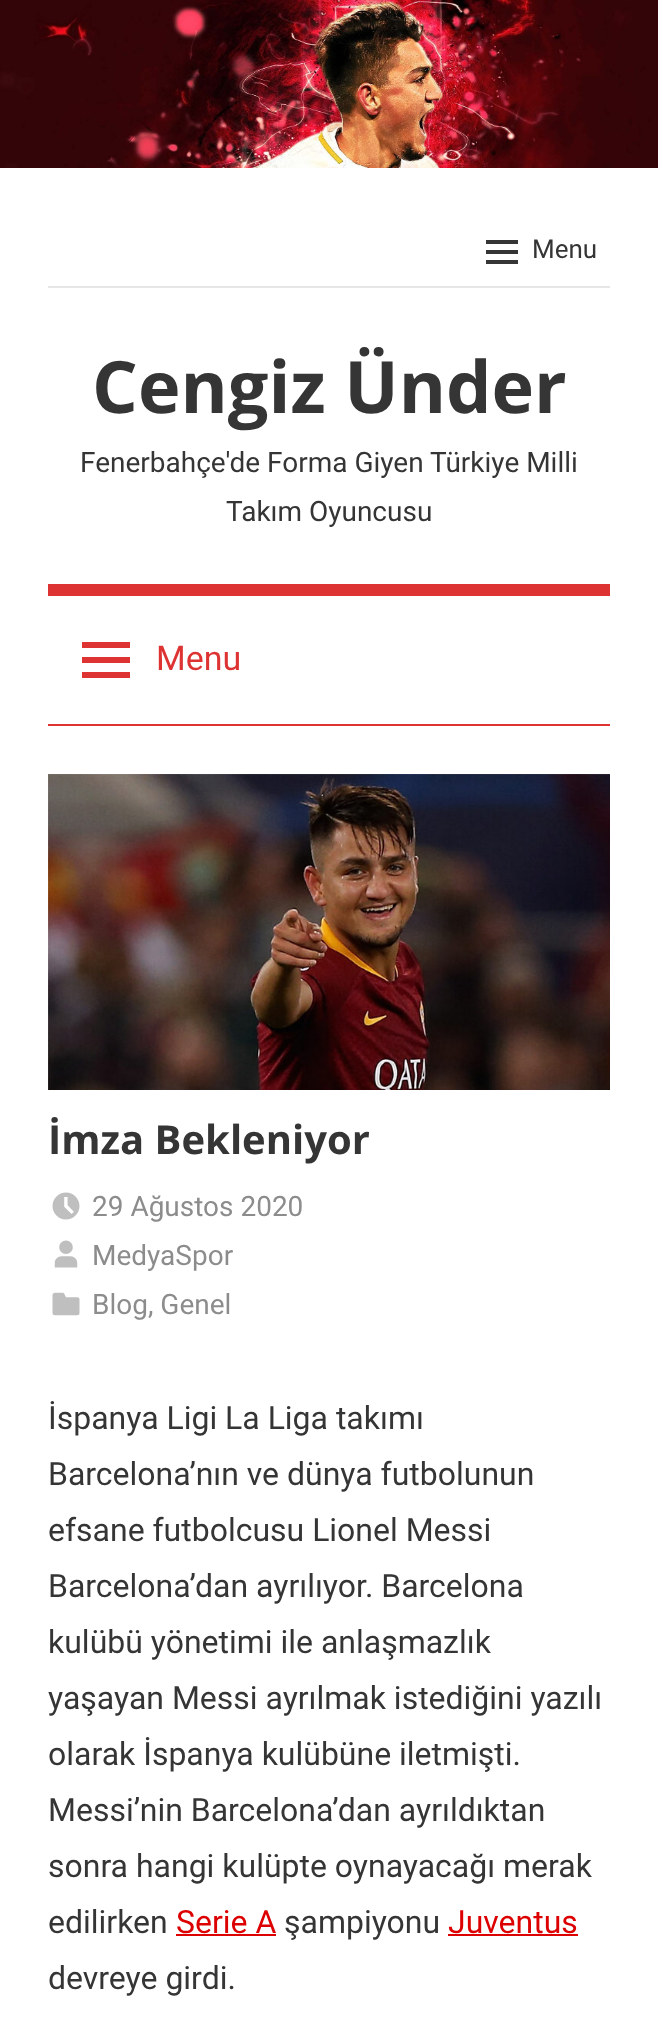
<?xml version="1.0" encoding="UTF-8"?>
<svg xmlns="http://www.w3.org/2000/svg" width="658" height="2039">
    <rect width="100%" height="100%" fill="#FFFFFF"/>
    <image x="0" y="0" width="658" height="168" href="img_01.png"/>
    <rect x="48" y="286" width="562" height="2" fill="#E6E6E6"/>
    <image x="486" y="240" width="32" height="24" href="img_02.png"/>
    <text x="532" y="258" font-family="Roboto" font-size="26" fill="#353535">Menu</text>
    <text x="92" y="413" font-family="Open Sans" font-size="72" font-weight="700" fill="#353535">Cengiz Ünder</text>
    <text x="80" y="472" font-family="Roboto" font-size="28" fill="#353535">Fenerbahçe'de Forma Giyen Türkiye Milli</text>
    <text x="226" y="521" font-family="Roboto" font-size="28" fill="#353535">Takım Oyuncusu</text>
    <rect x="48" y="584" width="562" height="12" fill="#DD3333"/>
    <rect x="48" y="724" width="562" height="2" fill="#DD3333"/>
    <image x="82" y="642" width="48" height="36" href="img_03.png"/>
    <text x="156" y="670" font-family="Roboto" font-size="34" fill="#DD3333">Menu</text>
    <image x="48" y="774" width="562" height="316" href="img_04.png"/>
    <text x="48" y="1154" font-family="Open Sans" font-size="40" font-weight="700" fill="#353535">İmza Bekleniyor</text>
    <image x="52" y="1192" width="28" height="28" href="img_05.png"/>
    <text x="92" y="1216" font-family="Roboto" font-size="28" fill="#8C8C8C">29 Ağustos 2020</text>
    <image x="54" y="1240" width="24" height="28" href="img_06.png"/>
    <text x="92" y="1265" font-family="Roboto" font-size="28" fill="#8C8C8C">MedyaSpor</text>
    <image x="52" y="1292" width="28" height="24" href="img_07.png"/>
    <text x="92" y="1314" font-family="Roboto" font-size="28" fill="#8C8C8C">Blog, Genel</text>
    <text font-family="Roboto" font-size="32" fill="#353535">
        <tspan x="48" y="1429">İspanya Ligi La Liga takımı</tspan>
        <tspan x="48" y="1485">Barcelona’nın ve dünya futbolunun</tspan>
        <tspan x="48" y="1541">efsane futbolcusu Lionel Messi</tspan>
        <tspan x="48" y="1597">Barcelona’dan ayrılıyor. Barcelona</tspan>
        <tspan x="48" y="1653">kulübü yönetimi ile anlaşmazlık</tspan>
        <tspan x="48" y="1709">yaşayan Messi ayrılmak istediğini yazılı</tspan>
        <tspan x="48" y="1765">olarak İspanya kulübüne iletmişti.</tspan>
        <tspan x="48" y="1821">Messi’nin Barcelona’dan ayrıldıktan</tspan>
        <tspan x="48" y="1877">sonra hangi kulüpte oynayacağı merak</tspan>
        <tspan x="48" y="1933">edilirken</tspan>
    </text>
    <text x="176" y="1933" font-family="Roboto" font-size="32" fill="#DD0000">Serie A</text>
    <rect x="176" y="1934" width="100" height="2" fill="#DD0000"/>
    <text x="284" y="1933" font-family="Roboto" font-size="32" fill="#353535">şampiyonu</text>
    <text x="448" y="1933" font-family="Roboto" font-size="32" fill="#DD0000">Juventus</text>
    <rect x="448" y="1934" width="130" height="2" fill="#DD0000"/>
    <text x="48" y="1989" font-family="Roboto" font-size="32" fill="#353535">devreye girdi.</text>
</svg>
